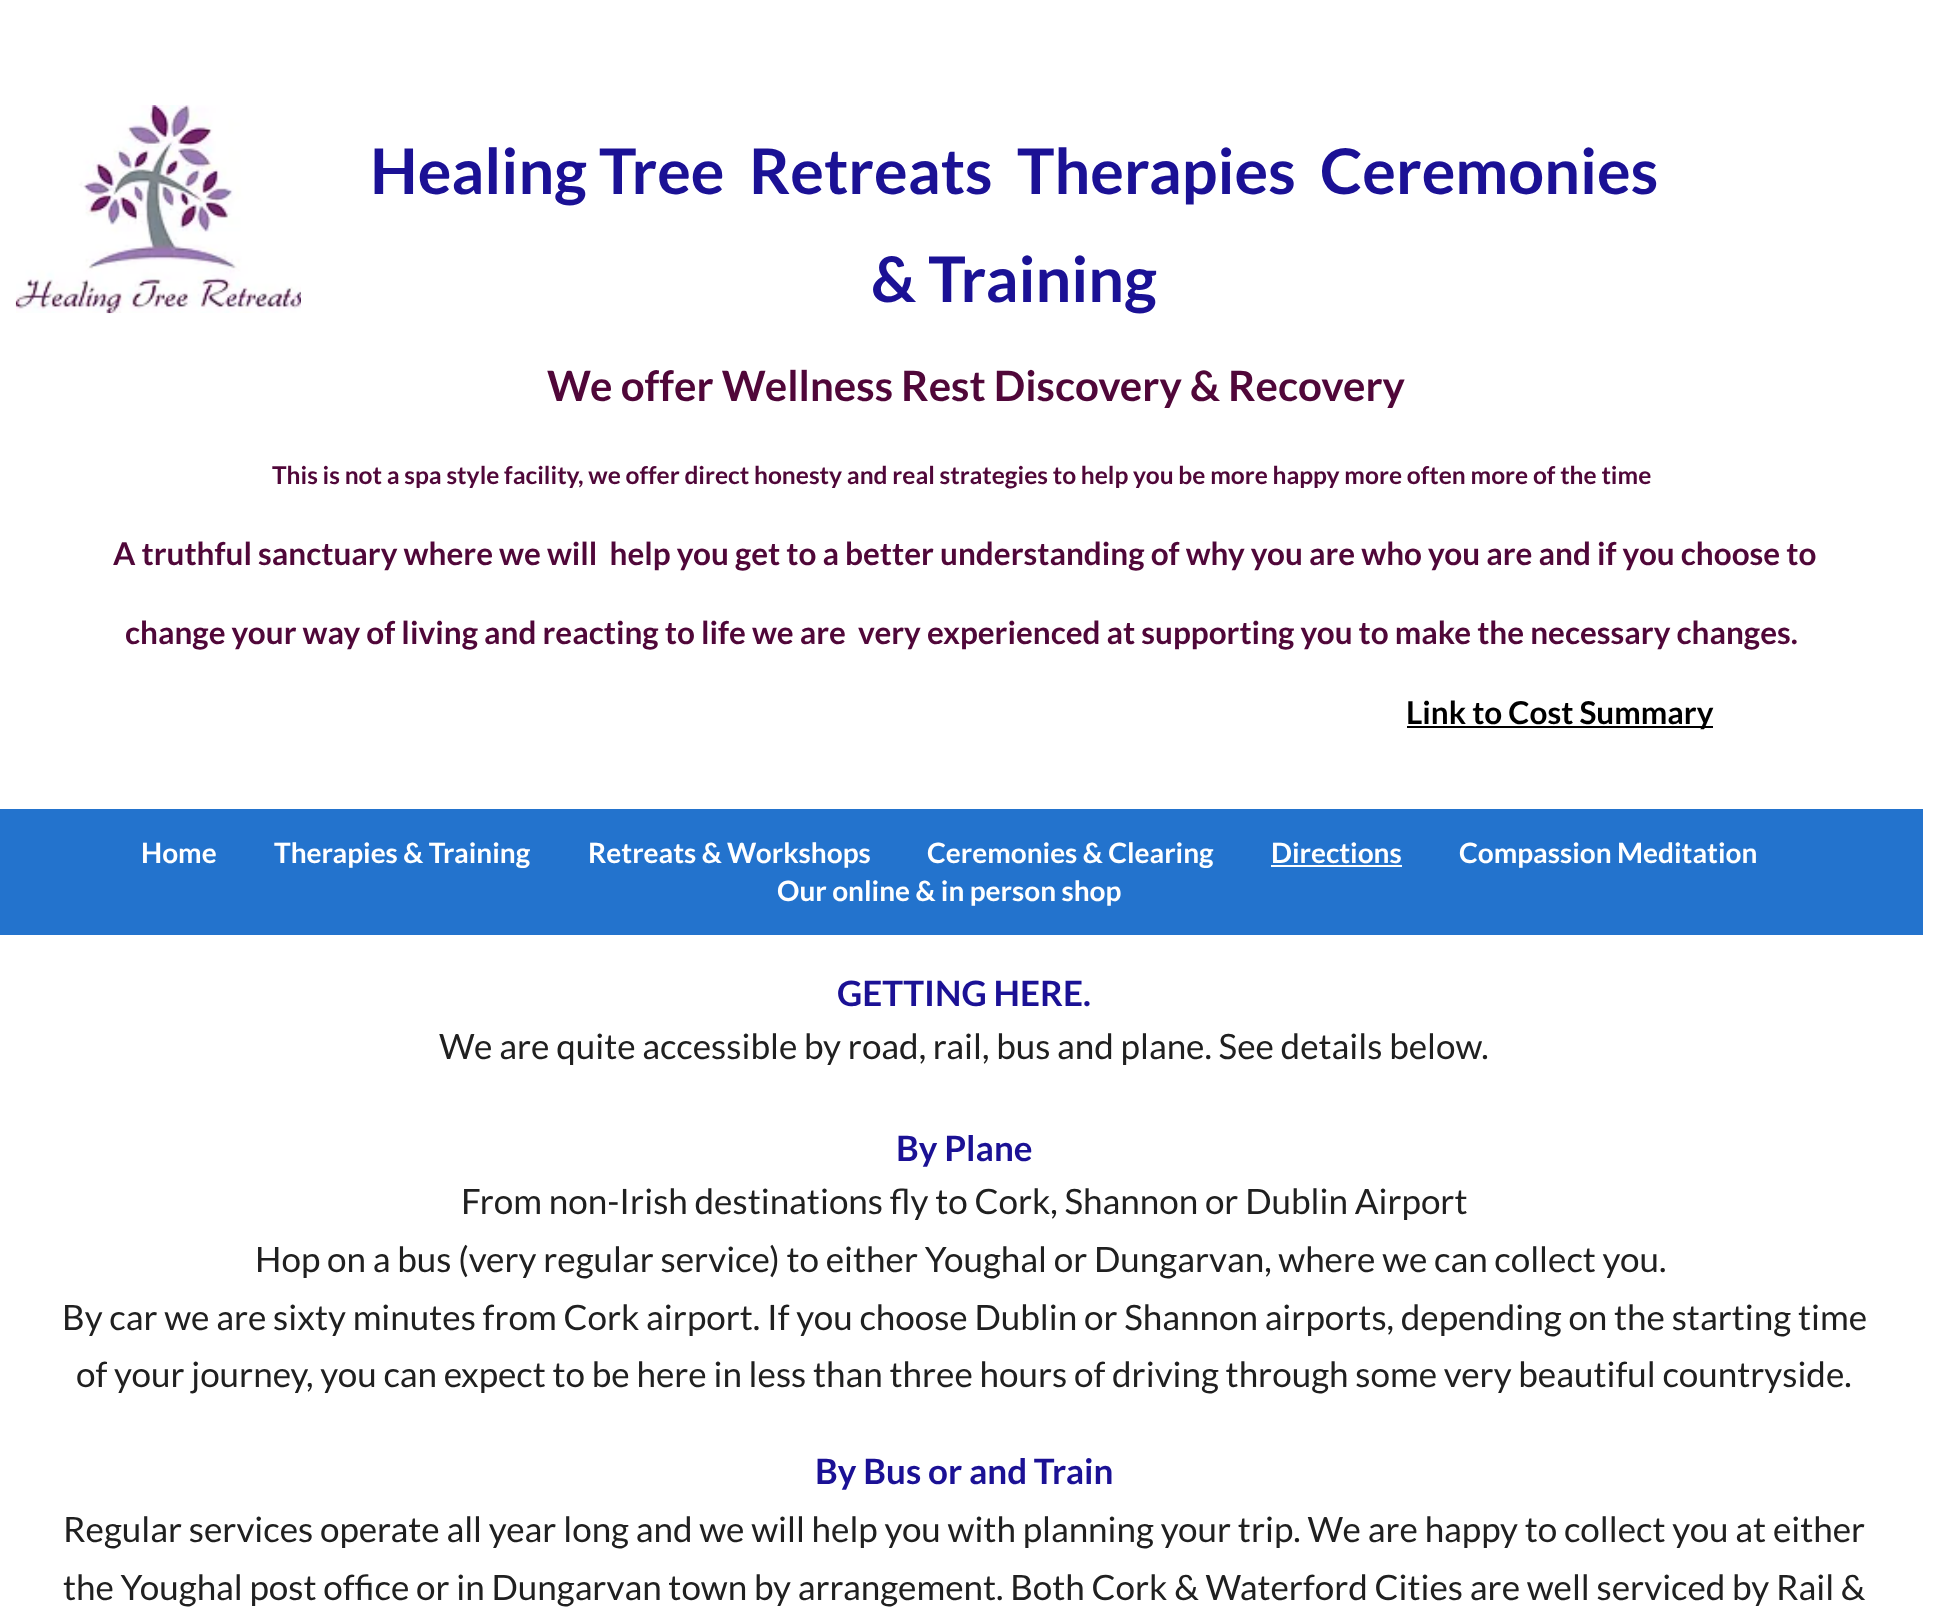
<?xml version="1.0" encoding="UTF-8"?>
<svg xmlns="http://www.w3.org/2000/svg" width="1943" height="1616">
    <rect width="100%" height="100%" fill="#FFFFFF"/>
    <image x="15" y="105" width="286" height="209" href="img_01.png"/>
    <text x="370" y="194" font-family="Lato" font-size="63" font-weight="700" fill="#1B1195">Healing Tree</text>
    <text x="749" y="194" font-family="Lato" font-size="63" font-weight="700" fill="#1B1195">Retreats</text>
    <text x="1017" y="194" font-family="Lato" font-size="63" font-weight="700" fill="#1B1195" xml:space="preserve">Therapies  Ceremonies</text>
    <text x="871" y="302" font-family="Lato" font-size="63" font-weight="700" fill="#1B1195">&amp; Training</text>
    <text x="547" y="401" font-family="Lato" font-size="42" font-weight="700" fill="#500739">We offer Wellness Rest Discovery &amp; Recovery</text>
    <text x="272" y="484" font-family="Lato" font-size="24.5" font-weight="700" fill="#500739">This is not a spa style facility, we offer direct honesty and real strategies to help you be more happy more often more of the time</text>
    <text x="113" y="565" font-family="Lato" font-size="31.5" font-weight="700" fill="#500739" xml:space="preserve">A truthful sanctuary where we will  help you get to a better understanding of why you are who you are and if you choose to</text>
    <text x="125" y="644" font-family="Lato" font-size="31.5" font-weight="700" fill="#500739" xml:space="preserve">change your way of living and reacting to life we are  very experienced at supporting you to make the necessary changes.</text>
    <rect x="1407" y="726" width="306" height="2" fill="#000000"/>
    <text x="1406" y="724" font-family="Lato" font-size="31.5" font-weight="700" fill="#000000">Link to Cost Summary</text>
    <rect x="0" y="809" width="1923" height="126" fill="#2373CD"/>
    <text x="141" y="863" font-family="Lato" font-size="28" font-weight="700" fill="#FFFFFF">Home</text>
    <text x="274" y="863" font-family="Lato" font-size="28" font-weight="700" fill="#FFFFFF">Therapies &amp; Training</text>
    <text x="588" y="863" font-family="Lato" font-size="28" font-weight="700" fill="#FFFFFF">Retreats &amp; Workshops</text>
    <text x="927" y="863" font-family="Lato" font-size="28" font-weight="700" fill="#FFFFFF">Ceremonies &amp; Clearing</text>
    <text x="1271" y="863" font-family="Lato" font-size="28" font-weight="700" fill="#FFFFFF">Directions</text>
    <rect x="1271" y="865" width="131" height="2" fill="#FFFFFF"/>
    <text x="1459" y="863" font-family="Lato" font-size="28" font-weight="700" fill="#FFFFFF">Compassion Meditation</text>
    <text x="777" y="901" font-family="Lato" font-size="28" font-weight="700" fill="#FFFFFF">Our online &amp; in person shop</text>
    <text x="837" y="1006" font-family="Lato" font-size="35" font-weight="700" fill="#1B1195">GETTING HERE.</text>
    <text x="439" y="1059" font-family="Lato" font-size="35" fill="#202020">We are quite accessible by road, rail, bus and plane. See details below.</text>
    <text x="896" y="1161" font-family="Lato" font-size="35" font-weight="700" fill="#1B1195">By Plane</text>
    <text x="461" y="1214" font-family="Lato" font-size="35" fill="#202020">From non-Irish destinations fly to Cork, Shannon or Dublin Airport</text>
    <text x="255" y="1272" font-family="Lato" font-size="35" fill="#202020">Hop on a bus (very regular service) to either Youghal or Dungarvan, where we can collect you.</text>
    <text x="62" y="1330" font-family="Lato" font-size="35" fill="#202020">By car we are sixty minutes from Cork airport. If you choose Dublin or Shannon airports, depending on the starting time</text>
    <text x="76" y="1387" font-family="Lato" font-size="35" fill="#202020">of your journey, you can expect to be here in less than three hours of driving through some very beautiful countryside.</text>
    <text x="815" y="1484" font-family="Lato" font-size="35" font-weight="700" fill="#1B1195">By Bus or and Train</text>
    <text font-family="Lato" font-size="35" fill="#202020">
        <tspan x="63" y="1542">Regular services operate all year long and we will help you with planning your trip. We are happy to collect you at either</tspan>
        <tspan x="63" y="1600">the Youghal post office or in Dungarvan town by arrangement. Both Cork &amp; Waterford Cities are well serviced by Rail &amp;</tspan>
    </text>
</svg>
